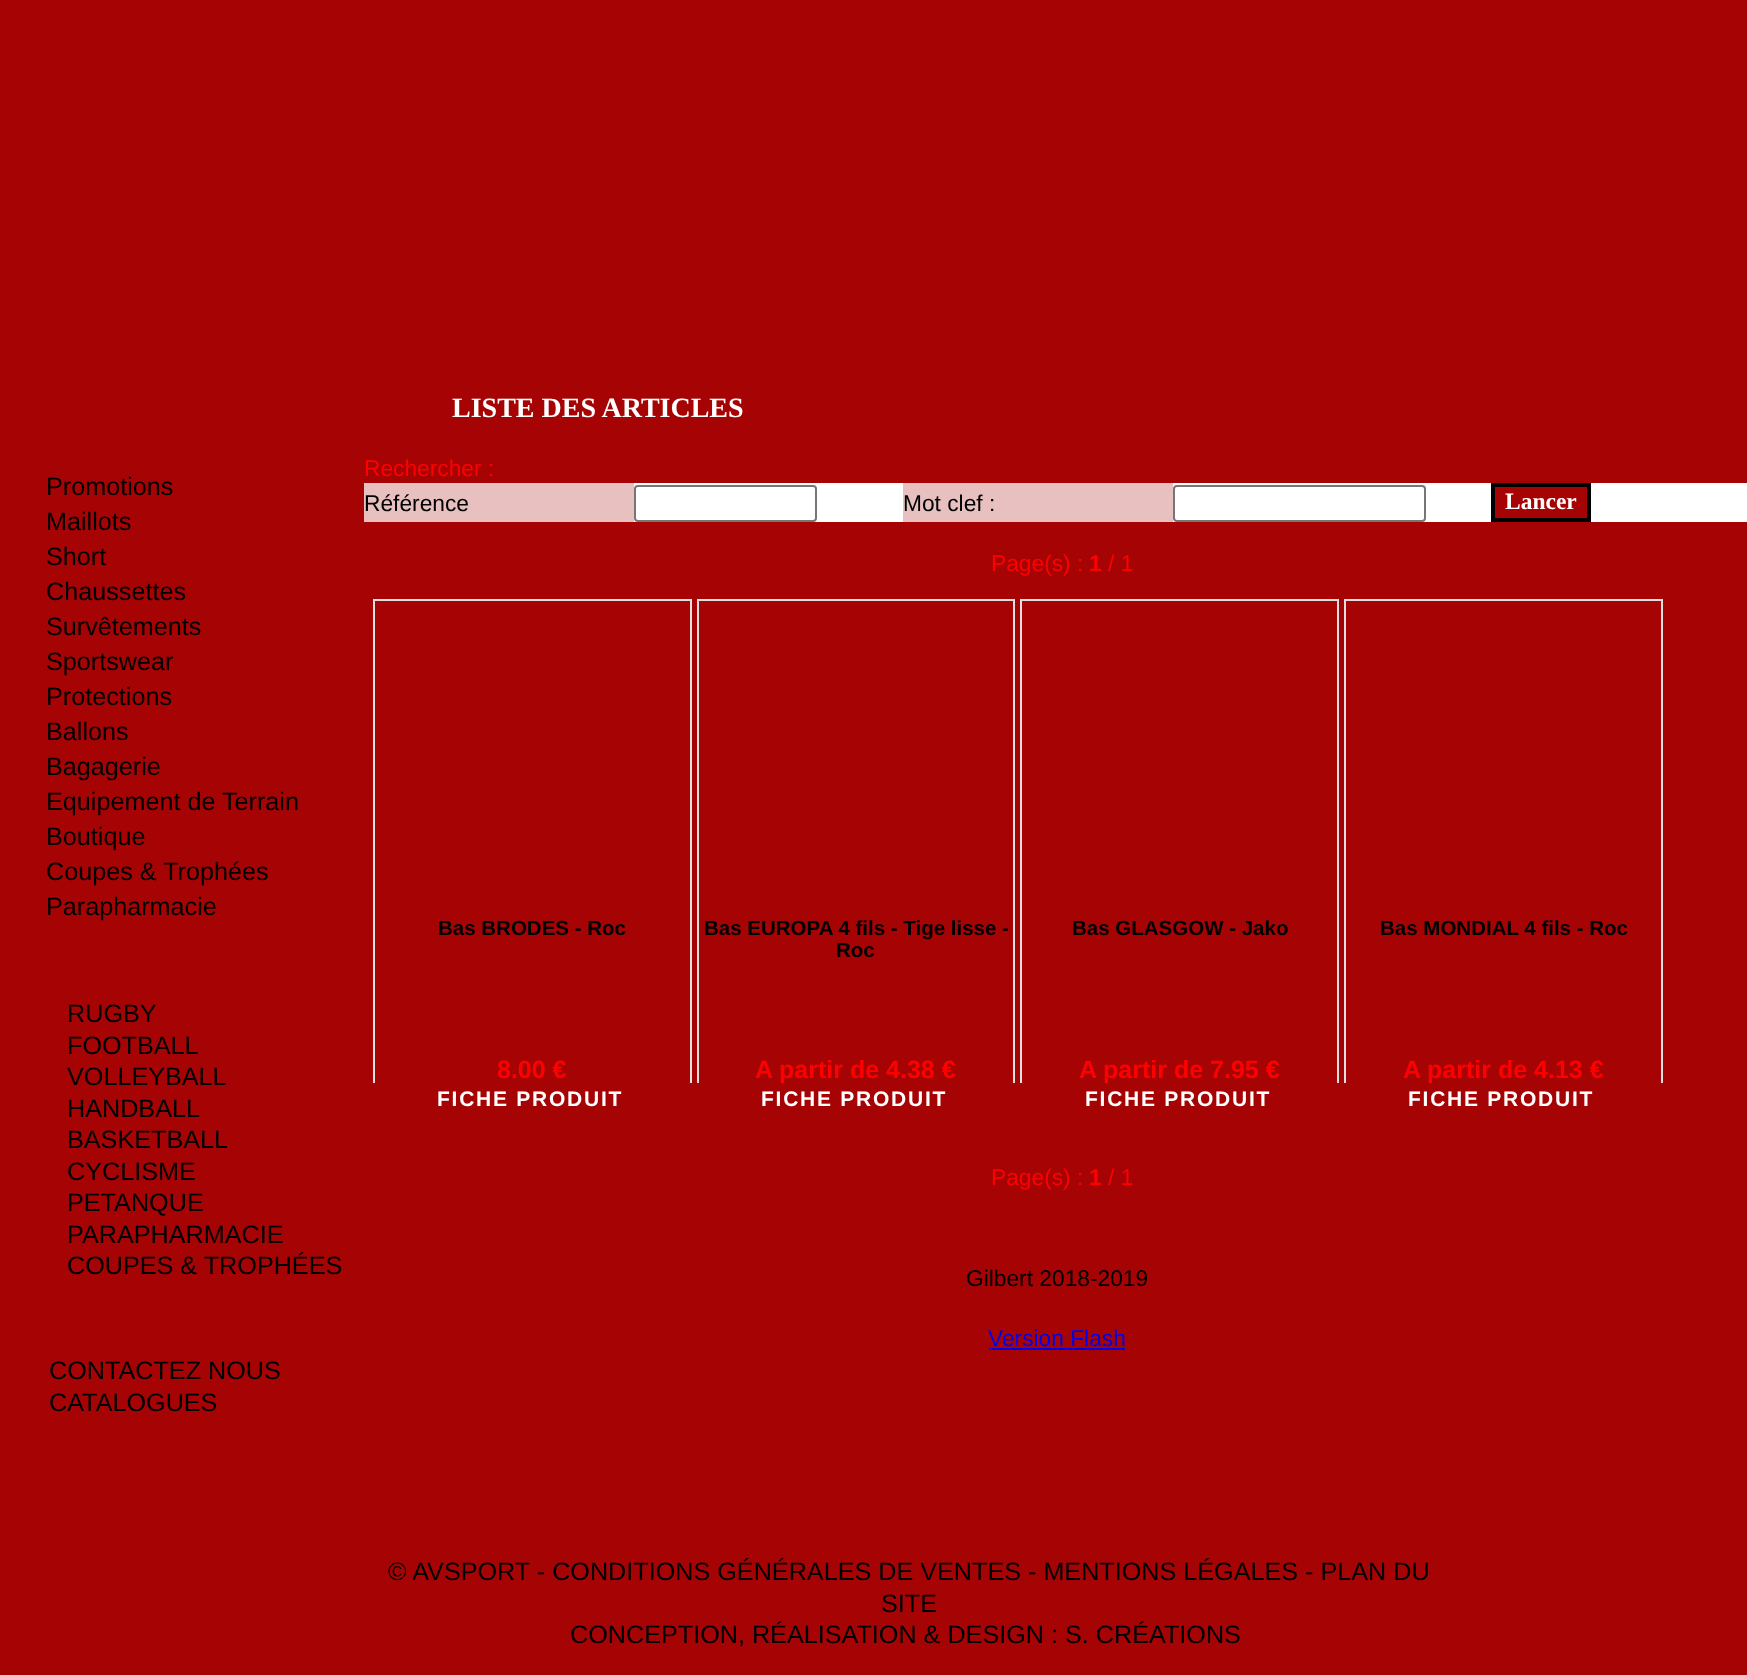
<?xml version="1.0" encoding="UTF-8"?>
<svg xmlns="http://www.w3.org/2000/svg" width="1747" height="1675">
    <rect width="100%" height="100%" fill="#A60404"/>
    <text font-family="Liberation Sans" font-size="25.2" fill="#000000">
        <tspan x="46" y="495">Promotions</tspan>
        <tspan x="46" y="530">Maillots</tspan>
        <tspan x="46" y="565">Short</tspan>
        <tspan x="46" y="600">Chaussettes</tspan>
        <tspan x="46" y="635">Survêtements</tspan>
        <tspan x="46" y="670">Sportswear</tspan>
        <tspan x="46" y="705">Protections</tspan>
        <tspan x="46" y="740">Ballons</tspan>
        <tspan x="46" y="775">Bagagerie</tspan>
        <tspan x="46" y="810">Equipement de Terrain</tspan>
        <tspan x="46" y="845">Boutique</tspan>
        <tspan x="46" y="880">Coupes &amp; Trophées</tspan>
        <tspan x="46" y="915">Parapharmacie</tspan>
    </text>
    <text font-family="Liberation Sans" font-size="25.2" fill="#000000">
        <tspan x="67" y="1022">RUGBY</tspan>
        <tspan x="67" y="1054">FOOTBALL</tspan>
        <tspan x="67" y="1085">VOLLEYBALL</tspan>
        <tspan x="67" y="1117">HANDBALL</tspan>
        <tspan x="67" y="1148">BASKETBALL</tspan>
        <tspan x="67" y="1180">CYCLISME</tspan>
        <tspan x="67" y="1211">PETANQUE</tspan>
        <tspan x="67" y="1243">PARAPHARMACIE</tspan>
        <tspan x="67" y="1274">COUPES &amp; TROPHÉES</tspan>
    </text>
    <text font-family="Liberation Sans" font-size="25.2" fill="#000000">
        <tspan x="49" y="1379">CONTACTEZ NOUS</tspan>
        <tspan x="49" y="1411">CATALOGUES</tspan>
    </text>
    <text x="452" y="417" font-family="Liberation Serif" font-size="28" font-weight="700" fill="#FFFFFF">LISTE DES ARTICLES</text>
    <text x="364" y="476" font-family="Liberation Sans" font-size="22.75" fill="#FF0000">Rechercher :</text>
    <rect x="364" y="483" width="270" height="39" fill="#E8C0C0"/>
    <text x="364" y="511" font-family="Liberation Sans" font-size="22.75" fill="#000000">Référence</text>
    <rect x="634" y="483" width="269" height="39" fill="#FFFFFF"/>
    <rect x="635" y="486" width="181" height="35" rx="3" fill="none" stroke="#767676" stroke-width="2"/>
    <rect x="903" y="483" width="270" height="39" fill="#E8C0C0"/>
    <text x="903" y="511" font-family="Liberation Sans" font-size="22.75" fill="#000000">Mot clef :</text>
    <rect x="1173" y="483" width="318" height="39" fill="#FFFFFF"/>
    <rect x="1174" y="486" width="251" height="35" rx="3" fill="none" stroke="#767676" stroke-width="2"/>
    <rect x="1591" y="483" width="156" height="39" fill="#FFFFFF"/>
    <rect x="1493" y="485" width="96" height="35" fill="none" stroke="#000000" stroke-width="4"/>
    <text x="1505" y="509" font-family="Liberation Serif" font-size="23.5" font-weight="700" fill="#FFFFFF">Lancer</text>
    <text x="991" y="571" font-family="Liberation Sans" font-size="22.75" fill="#FF0000">Page(s) :</text>
    <text x="1089" y="571" font-family="Liberation Sans" font-size="22.75" font-weight="700" fill="#FF0000">1</text>
    <text x="1108" y="571" font-family="Liberation Sans" font-size="22.75" fill="#FF0000">/ 1</text>
    <rect x="373" y="599" width="318" height="2" fill="#E0E0E0"/>
    <rect x="690" y="599" width="2" height="484" fill="#E0E0E0"/>
    <rect x="373" y="599" width="2" height="484" fill="#E0E0E0"/>
    <text x="438" y="935" font-family="Liberation Sans" font-size="20.5" font-weight="700" fill="#000000">Bas BRODES - Roc</text>
    <text x="497" y="1078" font-family="Liberation Sans" font-size="25" font-weight="700" fill="#FF0000">8.00 €</text>
    <text x="437" y="1106" font-family="Liberation Sans" font-size="21" font-weight="700" letter-spacing="1.75" fill="#FFFFFF">FICHE PRODUIT</text>
    <rect x="697" y="599" width="318" height="2" fill="#E0E0E0"/>
    <rect x="1013" y="599" width="2" height="484" fill="#E0E0E0"/>
    <rect x="697" y="599" width="2" height="484" fill="#E0E0E0"/>
    <text x="704" y="935" font-family="Liberation Sans" font-size="20.5" font-weight="700" fill="#000000">Bas EUROPA 4 fils - Tige lisse -</text>
    <text x="836" y="957" font-family="Liberation Sans" font-size="20.5" font-weight="700" fill="#000000">Roc</text>
    <text x="755" y="1078" font-family="Liberation Sans" font-size="25" font-weight="700" fill="#FF0000">A partir de 4.38 €</text>
    <text x="761" y="1106" font-family="Liberation Sans" font-size="21" font-weight="700" letter-spacing="1.75" fill="#FFFFFF">FICHE PRODUIT</text>
    <rect x="1020" y="599" width="319" height="2" fill="#E0E0E0"/>
    <rect x="1337" y="599" width="2" height="484" fill="#E0E0E0"/>
    <rect x="1020" y="599" width="2" height="484" fill="#E0E0E0"/>
    <text x="1072" y="935" font-family="Liberation Sans" font-size="20.5" font-weight="700" fill="#000000">Bas GLASGOW - Jako</text>
    <text x="1079" y="1078" font-family="Liberation Sans" font-size="25" font-weight="700" fill="#FF0000">A partir de 7.95 €</text>
    <text x="1085" y="1106" font-family="Liberation Sans" font-size="21" font-weight="700" letter-spacing="1.75" fill="#FFFFFF">FICHE PRODUIT</text>
    <rect x="1344" y="599" width="319" height="2" fill="#E0E0E0"/>
    <rect x="1661" y="599" width="2" height="484" fill="#E0E0E0"/>
    <rect x="1344" y="599" width="2" height="484" fill="#E0E0E0"/>
    <text x="1380" y="935" font-family="Liberation Sans" font-size="20.5" font-weight="700" fill="#000000">Bas MONDIAL 4 fils - Roc</text>
    <text x="1403" y="1078" font-family="Liberation Sans" font-size="25" font-weight="700" fill="#FF0000">A partir de 4.13 €</text>
    <text x="1408" y="1106" font-family="Liberation Sans" font-size="21" font-weight="700" letter-spacing="1.75" fill="#FFFFFF">FICHE PRODUIT</text>
    <text x="991" y="1185" font-family="Liberation Sans" font-size="22.75" fill="#FF0000">Page(s) :</text>
    <text x="1089" y="1185" font-family="Liberation Sans" font-size="22.75" font-weight="700" fill="#FF0000">1</text>
    <text x="1108" y="1185" font-family="Liberation Sans" font-size="22.75" fill="#FF0000">/ 1</text>
    <text x="966" y="1286" font-family="Liberation Sans" font-size="22.75" fill="#000000">Gilbert 2018-2019</text>
    <text x="988" y="1346" font-family="Liberation Sans" font-size="22.75" fill="#0000EE">Version Flash</text>
    <rect x="989" y="1348" width="136" height="2" fill="#0000EE"/>
    <text x="388" y="1580" font-family="Liberation Sans" font-size="25.2" fill="#000000">© AVSPORT - CONDITIONS GÉNÉRALES DE VENTES - MENTIONS LÉGALES - PLAN DU</text>
    <text x="881" y="1612" font-family="Liberation Sans" font-size="25.2" fill="#000000">SITE</text>
    <text x="570" y="1643" font-family="Liberation Sans" font-size="25.2" fill="#000000">CONCEPTION, RÉALISATION &amp; DESIGN :</text>
    <text x="1065" y="1643" font-family="Liberation Sans" font-size="25.2" fill="#000000">S. CRÉATIONS</text>
</svg>
